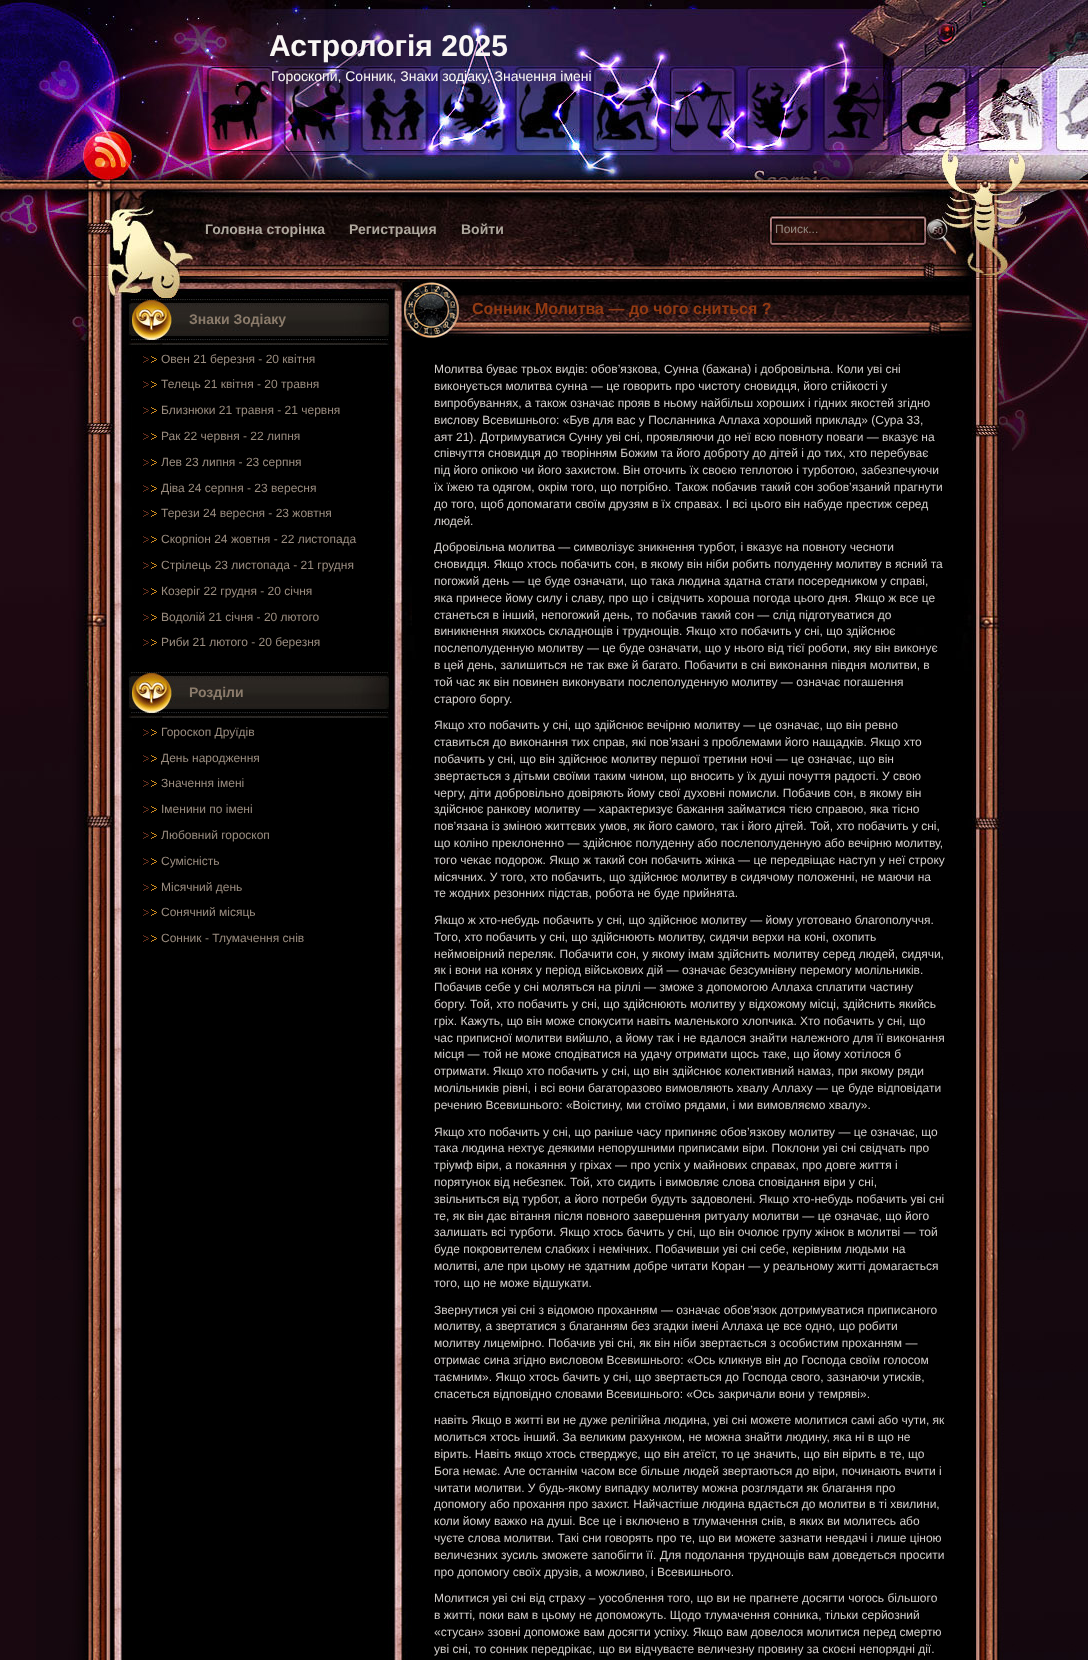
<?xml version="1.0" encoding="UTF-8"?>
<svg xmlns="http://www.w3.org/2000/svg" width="1088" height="1660">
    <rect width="100%" height="100%" fill="#190810"/>
    <image x="36" y="848" width="1052" height="812" href="img_01.png"/>
    <image x="0" y="0" width="1088" height="299" href="img_02.png"/>
    <image x="0" y="299" width="1088" height="549" href="img_03.png"/>
    <text x="269" y="56" font-family="Liberation Sans" font-size="30" font-weight="700" fill="#FAF7F5">Астрологія 2025</text>
    <text x="271" y="81" font-family="Liberation Sans" font-size="14" fill="#FAF7F5">Гороскопи, Сонник, Знаки зодіаку, Значення імені</text>
    <text x="205" y="234" font-family="Liberation Sans" font-size="14" font-weight="700" fill="#AEA79D">Головна сторінка</text>
    <text x="349" y="234" font-family="Liberation Sans" font-size="14" font-weight="700" fill="#AEA79D">Регистрация</text>
    <text x="461" y="234" font-family="Liberation Sans" font-size="14" font-weight="700" fill="#AEA79D">Войти</text>
    <text x="775" y="233" font-family="Liberation Sans" font-size="12" fill="#948980">Поиск...</text>
    <image x="128" y="299" width="261" height="46" href="img_04.png"/>
    <text x="189" y="324" font-family="Liberation Sans" font-size="14" font-weight="700" fill="#8B7B6B">Знаки Зодіаку</text>
    <image x="143" y="356" width="14" height="7" href="img_05.png"/>
    <text x="161" y="363" font-family="Liberation Sans" font-size="12" fill="#9A8C7F">Овен 21 березня - 20 квітня</text>
    <image x="143" y="381" width="14" height="7" href="img_05.png"/>
    <text x="161" y="388" font-family="Liberation Sans" font-size="12" fill="#9A8C7F">Телець 21 квітня - 20 травня</text>
    <image x="143" y="407" width="14" height="7" href="img_05.png"/>
    <text x="161" y="414" font-family="Liberation Sans" font-size="12" fill="#9A8C7F">Близнюки 21 травня - 21 червня</text>
    <image x="143" y="433" width="14" height="7" href="img_05.png"/>
    <text x="161" y="440" font-family="Liberation Sans" font-size="12" fill="#9A8C7F">Рак 22 червня - 22 липня</text>
    <image x="143" y="459" width="14" height="7" href="img_05.png"/>
    <text x="161" y="466" font-family="Liberation Sans" font-size="12" fill="#9A8C7F">Лев 23 липня - 23 серпня</text>
    <image x="143" y="485" width="14" height="7" href="img_05.png"/>
    <text x="161" y="492" font-family="Liberation Sans" font-size="12" fill="#9A8C7F">Діва 24 серпня - 23 вересня</text>
    <image x="143" y="510" width="14" height="7" href="img_05.png"/>
    <text x="161" y="517" font-family="Liberation Sans" font-size="12" fill="#9A8C7F">Терези 24 вересня - 23 жовтня</text>
    <image x="143" y="536" width="14" height="7" href="img_05.png"/>
    <text x="161" y="543" font-family="Liberation Sans" font-size="12" fill="#9A8C7F">Скорпіон 24 жовтня - 22 листопада</text>
    <image x="143" y="562" width="14" height="7" href="img_05.png"/>
    <text x="161" y="569" font-family="Liberation Sans" font-size="12" fill="#9A8C7F">Стрілець 23 листопада - 21 грудня</text>
    <image x="143" y="588" width="14" height="7" href="img_05.png"/>
    <text x="161" y="595" font-family="Liberation Sans" font-size="12" fill="#9A8C7F">Козеріг 22 грудня - 20 січня</text>
    <image x="143" y="614" width="14" height="7" href="img_05.png"/>
    <text x="161" y="621" font-family="Liberation Sans" font-size="12" fill="#9A8C7F">Водолій 21 січня - 20 лютого</text>
    <image x="143" y="639" width="14" height="7" href="img_05.png"/>
    <text x="161" y="646" font-family="Liberation Sans" font-size="12" fill="#9A8C7F">Риби 21 лютого - 20 березня</text>
    <image x="128" y="672" width="261" height="46" href="img_04.png"/>
    <text x="189" y="697" font-family="Liberation Sans" font-size="14" font-weight="700" fill="#8B7B6B">Розділи</text>
    <image x="143" y="729" width="14" height="7" href="img_05.png"/>
    <text x="161" y="736" font-family="Liberation Sans" font-size="12" fill="#9A8C7F">Гороскоп Друїдів</text>
    <image x="143" y="755" width="14" height="7" href="img_05.png"/>
    <text x="161" y="762" font-family="Liberation Sans" font-size="12" fill="#9A8C7F">День народження</text>
    <image x="143" y="780" width="14" height="7" href="img_05.png"/>
    <text x="161" y="787" font-family="Liberation Sans" font-size="12" fill="#9A8C7F">Значення імені</text>
    <image x="143" y="806" width="14" height="7" href="img_05.png"/>
    <text x="161" y="813" font-family="Liberation Sans" font-size="12" fill="#9A8C7F">Іменини по імені</text>
    <image x="143" y="832" width="14" height="7" href="img_05.png"/>
    <text x="161" y="839" font-family="Liberation Sans" font-size="12" fill="#9A8C7F">Любовний гороскоп</text>
    <image x="143" y="858" width="14" height="7" href="img_05.png"/>
    <text x="161" y="865" font-family="Liberation Sans" font-size="12" fill="#9A8C7F">Сумісність</text>
    <image x="143" y="884" width="14" height="7" href="img_05.png"/>
    <text x="161" y="891" font-family="Liberation Sans" font-size="12" fill="#9A8C7F">Місячний день</text>
    <image x="143" y="909" width="14" height="7" href="img_05.png"/>
    <text x="161" y="916" font-family="Liberation Sans" font-size="12" fill="#9A8C7F">Сонячний місяць</text>
    <image x="143" y="935" width="14" height="7" href="img_05.png"/>
    <text x="161" y="942" font-family="Liberation Sans" font-size="12" fill="#9A8C7F">Сонник - Тлумачення снів</text>
    <image x="402" y="282" width="570" height="56" href="img_06.png"/>
    <text x="472" y="314" font-family="Liberation Sans" font-size="16" font-weight="700" fill="#933A12">Сонник Молитва — до чого сниться ?</text>
    <text font-family="Liberation Sans" font-size="12" fill="#D2CDCA">
        <tspan x="434" y="373">Молитва буває трьох видів: обов’язкова, Сунна (бажана) і добровільна. Коли уві сні</tspan>
        <tspan x="434" y="390">виконується молитва сунна — це говорить про чистоту сновидця, його стійкості у</tspan>
        <tspan x="434" y="407">випробуваннях, а також означає прояв в ньому найбільш хороших і гідних якостей згідно</tspan>
        <tspan x="434" y="424">вислову Всевишнього: «Був для вас у Посланника Аллаха хороший приклад» (Сура 33,</tspan>
        <tspan x="434" y="441">аят 21). Дотримуватися Сунну уві сні, проявляючи до неї всю повноту поваги — вказує на</tspan>
        <tspan x="434" y="457">співчуття сновидця до творінням Божим та його доброту до дітей і до тих, хто перебуває</tspan>
        <tspan x="434" y="474">під його опікою чи його захистом. Він оточить їх своєю теплотою і турботою, забезпечуючи</tspan>
        <tspan x="434" y="491">їх їжею та одягом, окрім того, що потрібно. Також побачив такий сон зобов’язаний прагнути</tspan>
        <tspan x="434" y="508">до того, щоб допомагати своїм друзям в їх справах. І всі цього він набуде престиж серед</tspan>
        <tspan x="434" y="525">людей.</tspan>
    </text>
    <text font-family="Liberation Sans" font-size="12" fill="#D2CDCA">
        <tspan x="434" y="551">Добровільна молитва — символізує зникнення турбот, і вказує на повноту чесноти</tspan>
        <tspan x="434" y="568">сновидця. Якщо хтось побачить сон, в якому він ніби робить полуденну молитву в ясний та</tspan>
        <tspan x="434" y="585">погожий день — це буде означати, що така людина здатна стати посередником у справі,</tspan>
        <tspan x="434" y="602">яка принесе йому силу і славу, про що і свідчить хороша погода цього дня. Якщо ж все це</tspan>
        <tspan x="434" y="619">станеться в інший, непогожий день, то побачив такий сон — слід підготуватися до</tspan>
        <tspan x="434" y="635">виникнення якихось складнощів і труднощів. Якщо хто побачить у сні, що здійснює</tspan>
        <tspan x="434" y="652">послеполуденную молитву — це буде означати, що у нього від тієї роботи, яку він виконує</tspan>
        <tspan x="434" y="669">в цей день, залишиться не так вже й багато. Побачити в сні виконання півдня молитви, в</tspan>
        <tspan x="434" y="686">той час як він повинен виконувати послеполуденную молитву — означає погашення</tspan>
        <tspan x="434" y="703">старого боргу.</tspan>
    </text>
    <text font-family="Liberation Sans" font-size="12" fill="#D2CDCA">
        <tspan x="434" y="729">Якщо хто побачить у сні, що здійснює вечірню молитву — це означає, що він ревно</tspan>
        <tspan x="434" y="746">ставиться до виконання тих справ, які пов’язані з проблемами його нащадків. Якщо хто</tspan>
        <tspan x="434" y="763">побачить у сні, що він здійснює молитву першої третини ночі — це означає, що він</tspan>
        <tspan x="434" y="780">звертається з дітьми своїми таким чином, що вносить у їх душі почуття радості. У свою</tspan>
        <tspan x="434" y="797">чергу, діти добровільно довіряють йому свої духовні помисли. Побачив сон, в якому він</tspan>
        <tspan x="434" y="813">здійснює ранкову молитву — характеризує бажання займатися тією справою, яка тісно</tspan>
        <tspan x="434" y="830">пов’язана із зміною життєвих умов, як його самого, так і його дітей. Той, хто побачить у сні,</tspan>
        <tspan x="434" y="847">що коліно преклоненно — здійснює полуденну або послеполуденную або вечірню молитву,</tspan>
        <tspan x="434" y="864">того чекає подорож. Якщо ж такий сон побачить жінка — це передвіщає наступ у неї строку</tspan>
        <tspan x="434" y="881">місячних. У того, хто побачить, що здійснює молитву в сидячому положенні, не маючи на</tspan>
        <tspan x="434" y="897">те жодних резонних підстав, робота не буде прийнята.</tspan>
    </text>
    <text font-family="Liberation Sans" font-size="12" fill="#D2CDCA">
        <tspan x="434" y="924">Якщо ж хто-небудь побачить у сні, що здійснює молитву — йому уготовано благополуччя.</tspan>
        <tspan x="434" y="941">Того, хто побачить у сні, що здійснюють молитву, сидячи верхи на коні, охопить</tspan>
        <tspan x="434" y="958">неймовірний переляк. Побачити сон, у якому імам здійснить молитву серед людей, сидячи,</tspan>
        <tspan x="434" y="974">як і вони на конях у період військових дій — означає безсумнівну перемогу молільників.</tspan>
        <tspan x="434" y="991">Побачив себе у сні моляться на ріллі — зможе з допомогою Аллаха сплатити частину</tspan>
        <tspan x="434" y="1008">боргу. Той, хто побачить у сні, що здійснюють молитву у відхожому місці, здійснить якийсь</tspan>
        <tspan x="434" y="1025">гріх. Кажуть, що він може спокусити навіть маленького хлопчика. Хто побачить у сні, що</tspan>
        <tspan x="434" y="1042">час приписної молитви вийшло, а йому так і не вдалося знайти належного для її виконання</tspan>
        <tspan x="434" y="1058">місця — той не може сподіватися на удачу отримати щось таке, що йому хотілося б</tspan>
        <tspan x="434" y="1075">отримати. Якщо хто побачить у сні, що він здійснює колективний намаз, при якому ряди</tspan>
        <tspan x="434" y="1092">молільників рівні, і всі вони багаторазово вимовляють хвалу Аллаху — це буде відповідати</tspan>
        <tspan x="434" y="1109">речению Всевишнього: «Воістину, ми стоїмо рядами, і ми вимовляємо хвалу».</tspan>
    </text>
    <text font-family="Liberation Sans" font-size="12" fill="#D2CDCA">
        <tspan x="434" y="1136">Якщо хто побачить у сні, що раніше часу припиняє обов’язкову молитву — це означає, що</tspan>
        <tspan x="434" y="1152">така людина нехтує деякими непорушними приписами віри. Поклони уві сні свідчать про</tspan>
        <tspan x="434" y="1169">тріумф віри, а покаяння у гріхах — про успіх у майнових справах, про довге життя і</tspan>
        <tspan x="434" y="1186">порятунок від небезпек. Той, хто сидить і вимовляє слова сповідання віри у сні,</tspan>
        <tspan x="434" y="1203">звільниться від турбот, а його потреби будуть задоволені. Якщо хто-небудь побачить уві сні</tspan>
        <tspan x="434" y="1220">те, як він дає вітання після повного завершення ритуалу молитви — це означає, що його</tspan>
        <tspan x="434" y="1236">залишать всі турботи. Якщо хтось бачить у сні, що він очолює групу жінок в молитві — той</tspan>
        <tspan x="434" y="1253">буде покровителем слабких і немічних. Побачивши уві сні себе, керівним людьми на</tspan>
        <tspan x="434" y="1270">молитві, але при цьому не здатним добре читати Коран — у реальному житті домагається</tspan>
        <tspan x="434" y="1287">того, що не може відшукати.</tspan>
    </text>
    <text font-family="Liberation Sans" font-size="12" fill="#D2CDCA">
        <tspan x="434" y="1314">Звернутися уві сні з відомою проханням — означає обов’язок дотримуватися приписаного</tspan>
        <tspan x="434" y="1330">молитву, а звертатися з благанням без згадки імені Аллаха це все одно, що робити</tspan>
        <tspan x="434" y="1347">молитву лицемірно. Побачив уві сні, як він ніби звертається з особистим проханням —</tspan>
        <tspan x="434" y="1364">отримає сина згідно висловом Всевишнього: «Ось кликнув він до Господа своїм голосом</tspan>
        <tspan x="434" y="1381">таємним». Якщо хтось бачить у сні, що звертається до Господа свого, зазнаючи утисків,</tspan>
        <tspan x="434" y="1398">спасеться відповідно словами Всевишнього: «Ось закричали вони у темряві».</tspan>
    </text>
    <text font-family="Liberation Sans" font-size="12" fill="#D2CDCA">
        <tspan x="434" y="1424">навіть Якщо в житті ви не дуже релігійна людина, уві сні можете молитися самі або чути, як</tspan>
        <tspan x="434" y="1441">молиться хтось інший. За великим рахунком, не можна знайти людину, яка ні в що не</tspan>
        <tspan x="434" y="1458">вірить. Навіть якщо хтось стверджує, що він атеїст, то це значить, що він вірить в те, що</tspan>
        <tspan x="434" y="1475">Бога немає. Але останнім часом все більше людей звертаються до віри, починають вчити і</tspan>
        <tspan x="434" y="1492">читати молитви. У будь-якому випадку молитву можна розглядати як благання про</tspan>
        <tspan x="434" y="1508">допомогу або прохання про захист. Найчастіше людина вдається до молитви в ті хвилини,</tspan>
        <tspan x="434" y="1525">коли йому важко на душі. Все це і включено в тлумачення снів, в яких ви молитесь або</tspan>
        <tspan x="434" y="1542">чуєте слова молитви. Такі сни говорять про те, що ви можете зазнати невдачі і лише ціною</tspan>
        <tspan x="434" y="1559">величезних зусиль зможете запобігти її. Для подолання труднощів вам доведеться просити</tspan>
        <tspan x="434" y="1576">про допомогу своїх друзів, а можливо, і Всевишнього.</tspan>
    </text>
    <text font-family="Liberation Sans" font-size="12" fill="#D2CDCA">
        <tspan x="434" y="1602">Молитися уві сні від страху – уособлення того, що ви не прагнете досягти чогось більшого</tspan>
        <tspan x="434" y="1619">в житті, поки вам в цьому не допоможуть. Щодо тлумачення сонника, тільки серйозний</tspan>
        <tspan x="434" y="1636">«стусан» ззовні допоможе вам досягти успіху. Якщо вам довелося молитися перед смертю</tspan>
        <tspan x="434" y="1653">уві сні, то сонник передрікає, що ви відчуваєте величезну провину за скоєні непорядні дії.</tspan>
    </text>
</svg>
